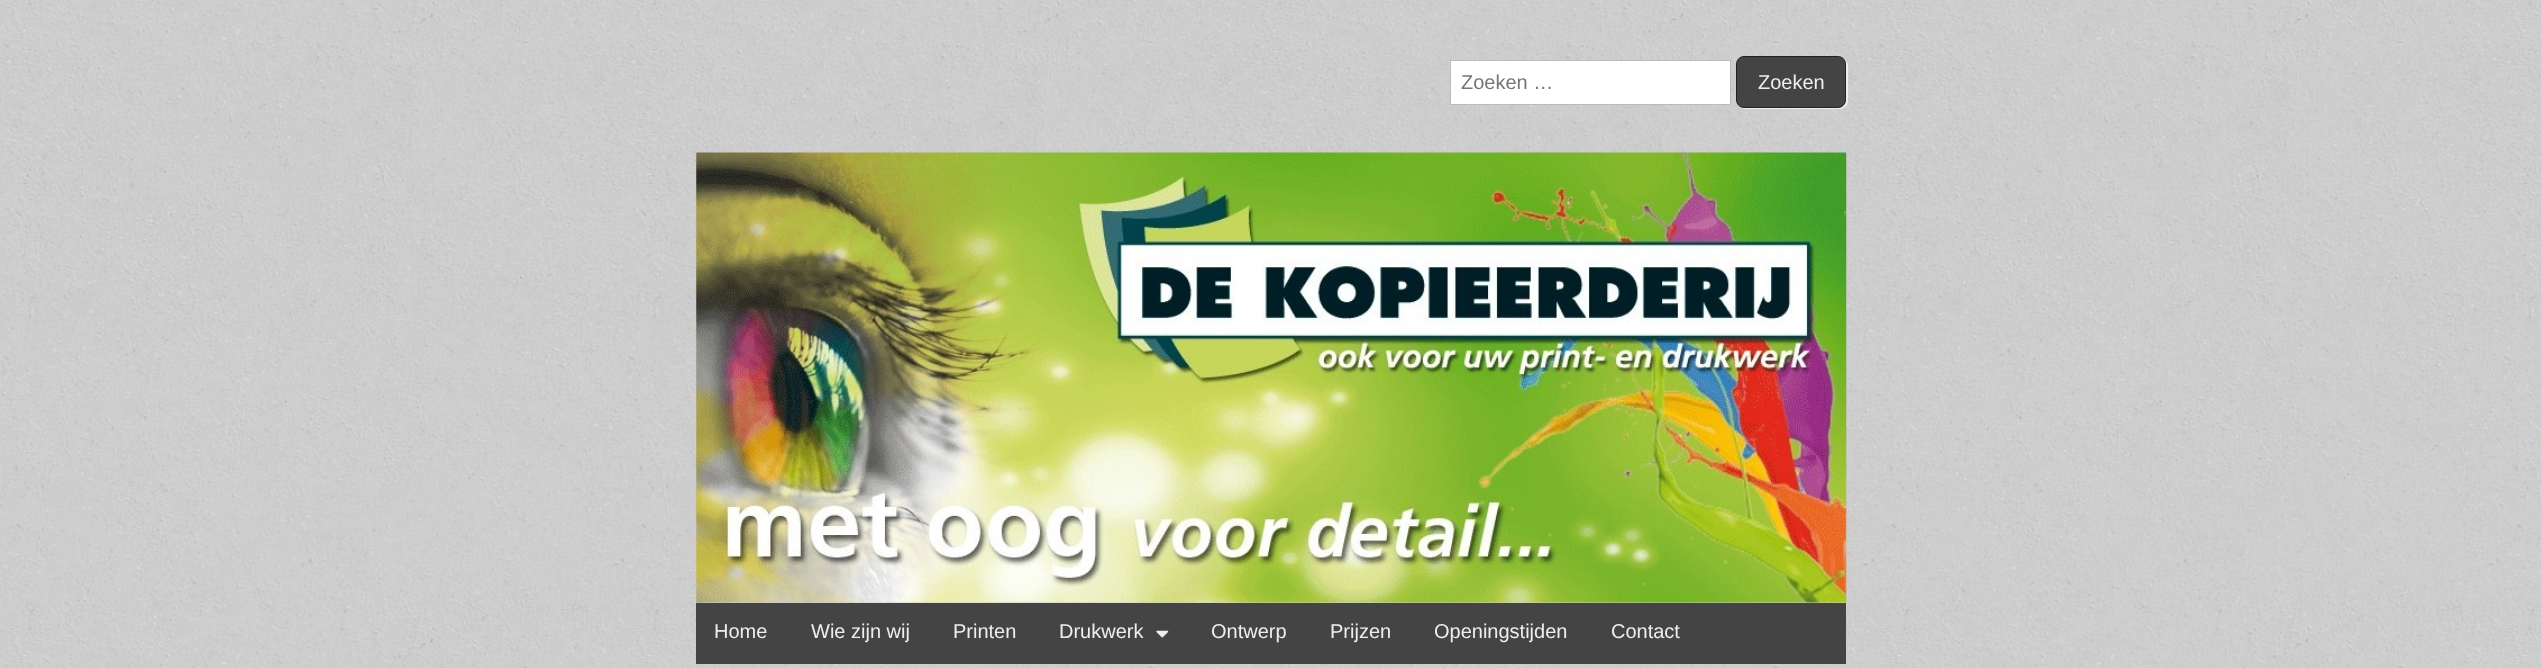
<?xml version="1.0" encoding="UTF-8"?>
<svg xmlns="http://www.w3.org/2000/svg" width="2541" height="668">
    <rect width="100%" height="100%" fill="#FFFFFF"/>
    <image x="0" y="0" width="2541" height="668" href="img_01.png"/>
    <rect x="1450.5" y="60.5" width="280" height="44" fill="#FFFFFF" stroke="#BBBBBB"/>
    <text x="1461" y="89" font-family="Liberation Sans" font-size="20" fill="#757575">Zoeken …</text>
    <path d="M 1740 107 C 1742 108 1744 109 1746 109 H 1840 C 1844 109 1848 105 1848 101 V 66 C 1848 64 1847 61 1845 60 C 1846 61 1846 62 1846 64 V 100 C 1846 104 1843 108 1839 108 H 1744 Z" fill="#EEEEEE"/>
    <rect x="1736.5" y="56.5" width="109" height="51" rx="7.5" fill="#444444" stroke="#222222"/>
    <text x="1758" y="89" font-family="Liberation Sans" font-size="20" fill="#EEEEEE">Zoeken</text>
    <image x="696" y="152" width="1151" height="451" href="img_02.png"/>
    <rect x="696" y="603" width="1150" height="61" fill="#444444"/>
    <text x="714" y="638" font-family="Liberation Sans" font-size="20" fill="#EEEEEE">Home</text>
    <text x="811" y="638" font-family="Liberation Sans" font-size="20" fill="#EEEEEE">Wie zijn wij</text>
    <text x="953" y="638" font-family="Liberation Sans" font-size="20" fill="#EEEEEE">Printen</text>
    <text x="1059" y="638" font-family="Liberation Sans" font-size="20" fill="#EEEEEE">Drukwerk</text>
    <image x="1156" y="630" width="13" height="8" href="img_03.png"/>
    <text x="1211" y="638" font-family="Liberation Sans" font-size="20" fill="#EEEEEE">Ontwerp</text>
    <text x="1330" y="638" font-family="Liberation Sans" font-size="20" fill="#EEEEEE">Prijzen</text>
    <text x="1434" y="638" font-family="Liberation Sans" font-size="20" fill="#EEEEEE">Openingstijden</text>
    <text x="1611" y="638" font-family="Liberation Sans" font-size="20" fill="#EEEEEE">Contact</text>
</svg>
